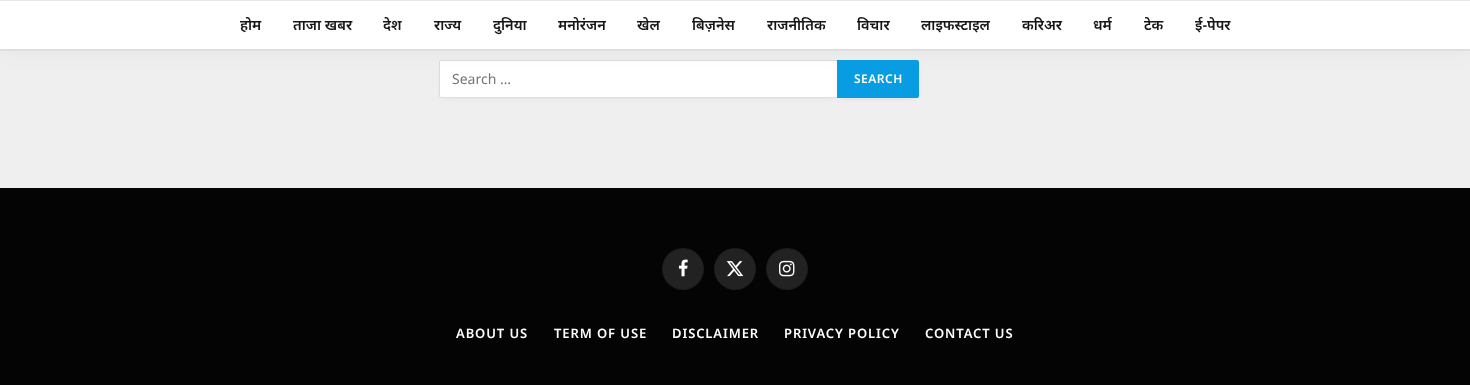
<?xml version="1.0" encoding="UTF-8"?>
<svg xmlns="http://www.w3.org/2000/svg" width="1470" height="385">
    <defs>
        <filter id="blur1" x="-50%" y="-200%" width="200%" height="500%"><feGaussianBlur stdDeviation="3.5"/></filter>
        <filter id="blur2" x="-50%" y="-200%" width="200%" height="500%"><feGaussianBlur stdDeviation="10"/></filter>
    </defs>
    <rect width="100%" height="100%" fill="#EFEFEF"/>
    <rect x="443" y="66" width="392" height="30" fill="#000000" fill-opacity="0.1" filter="url(#blur1)"/>
    <rect x="439.5" y="60.5" width="399" height="37" rx="1.5" fill="#FFFFFF" stroke="#DDDDDD"/>
    <rect x="841" y="66" width="74" height="30" fill="#000000" fill-opacity="0.16" filter="url(#blur1)"/>
    <path d="M 837 60 H 917 C 918 60 919 61 919 62 V 96 C 919 97 918 98 917 98 H 837 Z" fill="#089DE3"/>
    <rect x="0" y="0" width="1470" height="51" fill="#000000" fill-opacity="0.05" filter="url(#blur2)"/>
    <rect x="0" y="1" width="1470" height="48" fill="#FFFFFF"/>
    <rect x="0" y="0" width="1470" height="1" fill="#E8E8E8"/>
    <rect x="0" y="49" width="1470" height="2" fill="#DEDEDE"/>
    <text x="240" y="30" font-family="Noto Sans" font-size="14.5" font-weight="600" fill="#161616">होम</text>
    <text x="293" y="30" font-family="Noto Sans" font-size="14.5" font-weight="600" fill="#161616">ताजा खबर</text>
    <text x="383" y="30" font-family="Noto Sans" font-size="14.5" font-weight="600" fill="#161616">देश</text>
    <text x="434" y="30" font-family="Noto Sans" font-size="14.5" font-weight="600" fill="#161616">राज्य</text>
    <text x="493" y="30" font-family="Noto Sans" font-size="14.5" font-weight="600" fill="#161616">दुनिया</text>
    <text x="558" y="30" font-family="Noto Sans" font-size="14.5" font-weight="600" fill="#161616">मनोरंजन</text>
    <text x="637" y="30" font-family="Noto Sans" font-size="14.5" font-weight="600" fill="#161616">खेल</text>
    <text x="692" y="30" font-family="Noto Sans" font-size="14.5" font-weight="600" fill="#161616">बिज़नेस</text>
    <text x="767" y="30" font-family="Noto Sans" font-size="14.5" font-weight="600" fill="#161616">राजनीतिक</text>
    <text x="857" y="30" font-family="Noto Sans" font-size="14.5" font-weight="600" fill="#161616">विचार</text>
    <text x="921" y="30" font-family="Noto Sans" font-size="14.5" font-weight="600" fill="#161616">लाइफस्टाइल</text>
    <text x="1022" y="30" font-family="Noto Sans" font-size="14.5" font-weight="600" fill="#161616">करिअर</text>
    <text x="1093" y="30" font-family="Noto Sans" font-size="14.5" font-weight="600" fill="#161616">धर्म</text>
    <text x="1144" y="30" font-family="Noto Sans" font-size="14.5" font-weight="600" fill="#161616">टेक</text>
    <text x="1195" y="30" font-family="Noto Sans" font-size="14.5" font-weight="600" fill="#161616">ई-पेपर</text>
    <text x="452" y="84" font-family="Noto Sans" font-size="14" fill="#777777">Search …</text>
    <text x="854" y="83" font-family="Noto Sans" font-size="12" font-weight="600" letter-spacing="0.5" fill="#FFFFFF">SEARCH</text>
    <rect x="0" y="188" width="1470" height="197" fill="#040404"/>
    <circle cx="683" cy="269" r="21" fill="#222222"/>
    <circle cx="683" cy="269" r="20.5" fill="none" stroke="#000000" stroke-opacity="0.09"/>
    <image x="678" y="259" width="10" height="18" href="img_01.png"/>
    <circle cx="735" cy="269" r="21" fill="#222222"/>
    <circle cx="735" cy="269" r="20.5" fill="none" stroke="#000000" stroke-opacity="0.09"/>
    <image x="726" y="261" width="18" height="16" href="img_02.png"/>
    <circle cx="787" cy="269" r="21" fill="#222222"/>
    <circle cx="787" cy="269" r="20.5" fill="none" stroke="#000000" stroke-opacity="0.09"/>
    <image x="779" y="260" width="16" height="17" href="img_03.png"/>
    <text x="456" y="338" font-family="Noto Sans" font-size="13" font-weight="600" letter-spacing="0.9" fill="#FFFFFF">ABOUT US</text>
    <text x="554" y="338" font-family="Noto Sans" font-size="13" font-weight="600" letter-spacing="0.9" fill="#FFFFFF">TERM OF USE</text>
    <text x="672" y="338" font-family="Noto Sans" font-size="13" font-weight="600" letter-spacing="0.9" fill="#FFFFFF">DISCLAIMER</text>
    <text x="784" y="338" font-family="Noto Sans" font-size="13" font-weight="600" letter-spacing="0.9" fill="#FFFFFF">PRIVACY POLICY</text>
    <text x="925" y="338" font-family="Noto Sans" font-size="13" font-weight="600" letter-spacing="0.9" fill="#FFFFFF">CONTACT US</text>
</svg>
